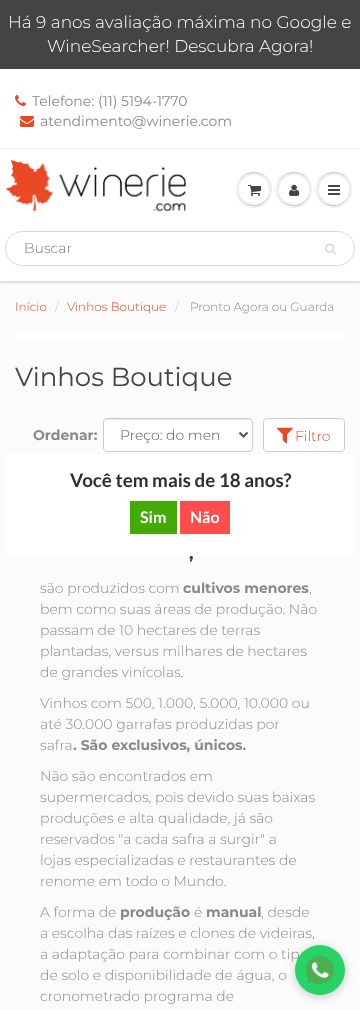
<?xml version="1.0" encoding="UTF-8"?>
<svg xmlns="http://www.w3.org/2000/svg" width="360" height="1010">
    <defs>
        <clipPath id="clip1"><rect x="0" y="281" width="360" height="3"/></clipPath>
        <filter id="blur1" x="-50%" y="-200%" width="200%" height="500%"><feGaussianBlur stdDeviation="1"/></filter>
        <filter id="blur2" x="-50%" y="-200%" width="200%" height="500%"><feGaussianBlur stdDeviation="5"/></filter>
    </defs>
    <rect width="100%" height="100%" fill="#FFFFFF"/>
    <rect x="0" y="0" width="360" height="69" fill="#444444"/>
    <text x="8" y="28" font-family="Montserrat" font-size="17" font-weight="300" fill="#FFFFFF">Há 9 anos avaliação máxima no Google e</text>
    <text x="47" y="52" font-family="Montserrat" font-size="17" font-weight="300" fill="#FFFFFF">WineSearcher! Descubra Agora!</text>
    <image x="15" y="95" width="11" height="11" href="img_01.png"/>
    <text x="32" y="106" font-family="Montserrat" font-size="14" fill="#898989">Telefone: (11) 5194-1770</text>
    <image x="20" y="116" width="14" height="11" href="img_02.png"/>
    <text x="40" y="126" font-family="Montserrat" font-size="14" fill="#898989">atendimento@winerie.com</text>
    <rect x="0" y="281" width="360" height="729" fill="#FBFBFB"/>
    <g clip-path="url(#clip1)">
        <rect x="0" y="150" width="360" height="133" fill="#0B191C" fill-opacity="0.12" filter="url(#blur1)"/>
    </g>
    <rect x="0" y="148" width="360" height="1" fill="#ECEFEF"/>
    <image x="6" y="159" width="180" height="53" href="img_03.png"/>
    <circle cx="254" cy="190" r="18" fill="#EDEFEF"/>
    <path d="M 254 173 C 266 173 272 181.5 272 190.5 C 272.5 172.5 249 165 239 180 C 237 183 236 187 236 190.5 C 236 181.5 242 173 254 173 Z" fill="#C9CBCB"/>
    <path d="M 239 190.5 C 238.5 205.5 258 212 266.5 199.5 C 268 197 269 193.5 269 190.5 C 268.5 209.5 239.5 209.5 239 190.5 Z" fill="#C9CBCB"/>
    <circle cx="254" cy="190" r="15" fill="#FFFFFF"/>
    <path d="M 254 176 C 264 176 269 183 269 190.5 C 269 187.5 268 184 266.5 181.5 C 258 169 238.5 175.5 239 190.5 C 239 183 244 176 254 176 Z" fill="#FFFFFF"/>
    <image x="248" y="185" width="13" height="11" href="img_04.png"/>
    <circle cx="294" cy="190" r="18" fill="#EDEFEF"/>
    <path d="M 294 173 C 306 173 312 181.5 312 190.5 C 312 187 311 183 309 180 C 299 165 275.5 172.5 276 190.5 C 276 181.5 282 173 294 173 Z" fill="#C9CBCB"/>
    <path d="M 279 190.5 C 278.5 205.5 298 212 306.5 199.5 C 308 197 309 193.5 309 190.5 C 308.5 209.5 279.5 209.5 279 190.5 Z" fill="#C9CBCB"/>
    <circle cx="294" cy="190" r="15" fill="#FFFFFF"/>
    <path d="M 294 176 C 304 176 309 183 309 190.5 C 309 187.5 308 184 306.5 181.5 C 298 169 278.5 175.5 279 190.5 C 279 183 284 176 294 176 Z" fill="#FFFFFF"/>
    <image x="289" y="184" width="11" height="12" href="img_05.png"/>
    <circle cx="334" cy="190" r="18" fill="#EDEFEF"/>
    <path d="M 334 173 C 346 173 352 181.5 352 190.5 C 352 187 351 183 349 180 C 339 165 315.5 172.5 316 190.5 C 316 181.5 322 173 334 173 Z" fill="#C9CBCB"/>
    <path d="M 319 190.5 C 319 193.5 320 197 321.5 199.5 C 330 212 349.5 205.5 349 190.5 C 348.5 209.5 319.5 209.5 319 190.5 Z" fill="#C9CBCB"/>
    <circle cx="334" cy="190" r="15" fill="#FFFFFF"/>
    <path d="M 334 176 C 344 176 349 183 349 190.5 C 349 187.5 348 184 346.5 181.5 C 338 169 318.5 175.5 319 190.5 C 319 183 324 176 334 176 Z" fill="#FFFFFF"/>
    <image x="328" y="185" width="12" height="10" href="img_06.png"/>
    <rect x="5.5" y="231.5" width="349" height="34" rx="17" fill="none" stroke="#D7DBDB"/>
    <text x="24" y="253" font-family="Montserrat" font-size="14" font-weight="300" fill="#757575">Buscar</text>
    <image x="325" y="243" width="11" height="12" href="img_07.png"/>
    <text x="15" y="311" font-family="Montserrat" font-size="12" font-weight="300" fill="#E94824">Início</text>
    <text x="55" y="311" font-family="Montserrat" font-size="12" font-weight="300" fill="#CCCCCC">/</text>
    <text x="67" y="311" font-family="Montserrat" font-size="12" font-weight="300" fill="#E94824">Vinhos Boutique</text>
    <text x="175" y="311" font-family="Montserrat" font-size="12" font-weight="300" fill="#CCCCCC">/</text>
    <text x="190" y="311" font-family="Montserrat" font-size="12" font-weight="300" fill="#898989">Pronto Agora ou Guarda</text>
    <rect x="15" y="331" width="330" height="10" rx="5" fill="#FFFFFF"/>
    <text x="15" y="386" font-family="Montserrat" font-size="26" fill="#444444">Vinhos Boutique</text>
    <text x="33" y="440" font-family="Montserrat" font-size="14" font-weight="700" fill="#898989">Ordenar:</text>
    <rect x="103" y="418" width="150" height="34" rx="4" fill="#FFFFFF"/>
    <path d="M 107 420 H 249 C 251 420 252 421 252 423 C 252 421 252 420 250 419 H 131 C 123 419 104 414 104 423 C 104 421 105 420 107 420 Z" fill="#ECECEC"/>
    <rect x="103.5" y="418.5" width="149" height="33" rx="3.5" fill="none" stroke="#CCCCCC"/>
    <path d="M 239.5 432.5 L 243.5 436.5 L 247.5 432.5" fill="none" stroke="#555555" stroke-width="2"/>
    <text x="120" y="440" font-family="Montserrat" font-size="14" font-weight="300" fill="#555555">Preço: do men</text>
    <rect x="263.5" y="418.5" width="81" height="33" rx="3.5" fill="#FFFFFF" stroke="#CCCCCC"/>
    <image x="277" y="427" width="16" height="17" href="img_08.png"/>
    <text x="295" y="441" font-family="Montserrat" font-size="14" font-weight="300" fill="#E94824">Filtro</text>
    <text x="189" y="559" font-family="Montserrat" font-size="17" font-weight="700" fill="#444444">,</text>
    <text x="40" y="593" font-family="Montserrat" font-size="14" font-weight="300" fill="#898989">são produzidos com</text>
    <text x="183" y="593" font-family="Montserrat" font-size="14" font-weight="700" fill="#898989">cultivos menores</text>
    <text x="309" y="593" font-family="Montserrat" font-size="14" font-weight="300" fill="#898989">,</text>
    <text font-family="Montserrat" font-size="14" font-weight="300" fill="#898989">
        <tspan x="40" y="614">bem como suas áreas de produção. Não</tspan>
        <tspan x="40" y="635">passam de 10 hectares de terras</tspan>
        <tspan x="40" y="656">plantadas, versus milhares de hectares</tspan>
        <tspan x="40" y="677">de grandes vinícolas.</tspan>
    </text>
    <text font-family="Montserrat" font-size="14" font-weight="300" fill="#898989">
        <tspan x="40" y="708">Vinhos com 500, 1.000, 5.000, 10.000 ou</tspan>
        <tspan x="40" y="729">até 30.000 garrafas produzidas por</tspan>
        <tspan x="40" y="750">safra</tspan>
    </text>
    <text x="73" y="750" font-family="Montserrat" font-size="14" font-weight="700" fill="#898989">. São exclusivos, únicos.</text>
    <text font-family="Montserrat" font-size="14" font-weight="300" fill="#898989">
        <tspan x="40" y="781">Não são encontrados em</tspan>
        <tspan x="40" y="802">supermercados, pois devido suas baixas</tspan>
        <tspan x="40" y="823">produções e alta qualidade, já são</tspan>
        <tspan x="40" y="844">reservados "a cada safra a surgir" a</tspan>
        <tspan x="40" y="865">lojas especializadas e restaurantes de</tspan>
        <tspan x="40" y="886">renome em todo o Mundo.</tspan>
    </text>
    <text x="40" y="917" font-family="Montserrat" font-size="14" font-weight="300" fill="#898989">A forma de</text>
    <text x="120" y="917" font-family="Montserrat" font-size="14" font-weight="700" fill="#898989">produção</text>
    <text x="194" y="917" font-family="Montserrat" font-size="14" font-weight="300" fill="#898989">é</text>
    <text x="206" y="917" font-family="Montserrat" font-size="14" font-weight="700" fill="#898989">manual</text>
    <text x="261" y="917" font-family="Montserrat" font-size="14" font-weight="300" fill="#898989">, desde</text>
    <text font-family="Montserrat" font-size="14" font-weight="300" fill="#898989">
        <tspan x="40" y="938">a escolha das raízes e clones de videiras,</tspan>
        <tspan x="40" y="959">a adaptação para combinar com o tip</tspan>
        <tspan x="40" y="980">de solo e disponibilidade de água, o</tspan>
        <tspan x="40" y="1001">cronometrado programa de</tspan>
    </text>
    <path d="M 12 454 H 348 C 352 454 355 455 355 456 V 554 C 355 555 352 556 348 556 H 12 C 8 556 5 555 5 554 V 456 C 5 455 8 454 12 454 Z" fill="#FFFFFF"/>
    <text x="70" y="487" font-family="Lato" font-size="18.75" font-weight="700" fill="#2F2F2F">Você tem mais de 18 anos?</text>
    <rect x="130" y="501" width="47" height="33" fill="#44AA08"/>
    <text x="140" y="523" font-family="Lato" font-size="16" font-weight="700" fill="#FFFFFF">Sim</text>
    <rect x="180" y="501" width="50" height="33" fill="#FF4D4D"/>
    <text x="190" y="523" font-family="Lato" font-size="16" font-weight="700" fill="#FFFFFF">Não</text>
    <rect x="295" y="947" width="50" height="50" rx="25" fill="#000000" fill-opacity="0.2" filter="url(#blur2)"/>
    <circle cx="320" cy="970" r="25" fill="#25D366"/>
    <image x="306" y="956" width="28" height="28" href="img_09.png"/>
</svg>
